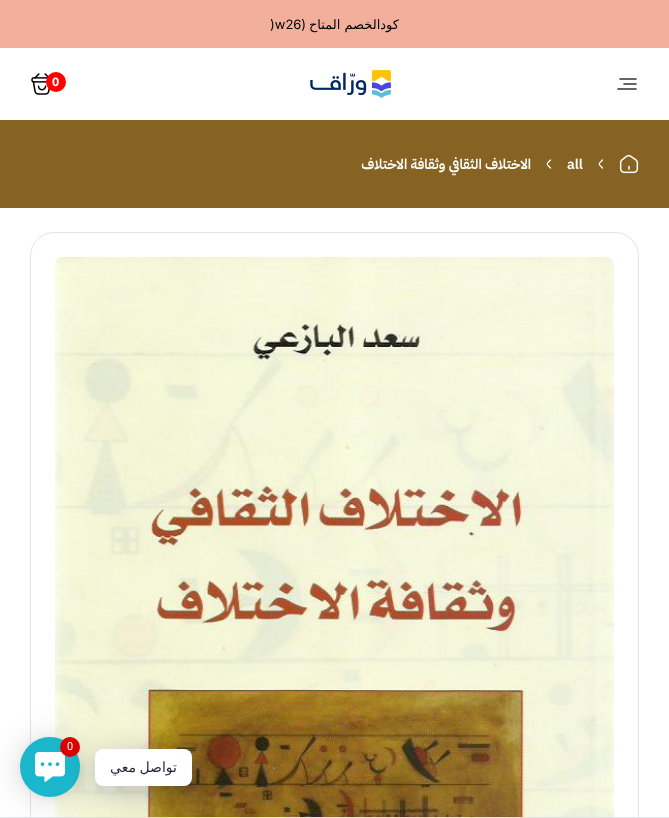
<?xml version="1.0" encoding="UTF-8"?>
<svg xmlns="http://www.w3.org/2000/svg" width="669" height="818">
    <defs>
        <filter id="blur1" x="-50%" y="-200%" width="200%" height="500%"><feGaussianBlur stdDeviation="16"/></filter>
        <filter id="blur2" x="-50%" y="-200%" width="200%" height="500%"><feGaussianBlur stdDeviation="3"/></filter>
    </defs>
    <rect width="100%" height="100%" fill="#FFFFFF"/>
    <rect x="0" y="0" width="669" height="48" fill="#F2B09C"/>
    <text x="399" y="29" font-family="DejaVu Sans" font-size="13" direction="rtl" fill="#000000">كودالخصم المتاح</text>
    <text x="306" y="29" font-family="Inter" font-size="13" direction="rtl" fill="#000000">(</text>
    <text x="270" y="29" font-family="Inter" font-size="13" fill="#000000">)w26</text>
    <image x="617" y="78" width="20" height="12" href="img_01.png"/>
    <image x="310" y="70" width="81" height="28" href="img_02.png"/>
    <image x="31" y="73" width="19" height="22" href="img_03.png"/>
    <circle cx="56" cy="82" r="10" fill="#FF0000"/>
    <text x="52" y="86" font-family="IBM Plex Sans Arabic" font-size="12" font-weight="700" fill="#FFFFFF">0</text>
    <rect x="0" y="120" width="669" height="88" fill="#876323"/>
    <image x="619" y="154" width="20" height="20" href="img_04.png"/>
    <text x="567" y="169" font-family="IBM Plex Sans Arabic" font-size="14" font-weight="600" fill="#FFFFFF">all</text>
    <text x="531" y="169" font-family="IBM Plex Sans Arabic" font-size="14" font-weight="600" direction="rtl" fill="#FFFFFF">الاختلاف الثقافي وثقافة الاختلاف</text>
    <path d="M 602.5 168 C 598 163.5 598 164.5 602.5 160 M 550.5 168 C 546 163.5 546 164.5 550.5 160" fill="none" stroke="#FFFFFF" stroke-width="1.2" stroke-linecap="round" stroke-linejoin="round"/>
    <rect x="30.5" y="232.5" width="608" height="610" rx="23.5" fill="none" stroke="#E2E2E9"/>
    <image x="55" y="257" width="559" height="560" href="img_05.png"/>
    <rect x="0" y="817" width="669" height="1" fill="#E2E2E9"/>
    <rect x="20" y="739" width="60" height="60" rx="30" fill="#000000" fill-opacity="0.16" filter="url(#blur1)"/>
    <rect x="20" y="738" width="60" height="60" rx="30" fill="#000000" fill-opacity="0.06" filter="url(#blur2)"/>
    <circle cx="50" cy="767" r="30" fill="#1AB7CC"/>
    <rect x="95" y="755" width="97" height="37" rx="8" fill="#00122E" fill-opacity="0.24" filter="url(#blur1)"/>
    <image x="35" y="752" width="30" height="30" href="img_06.png"/>
    <circle cx="70" cy="747" r="10" fill="#DD0000"/>
    <text x="67" y="750" font-family="Roboto" font-size="11" fill="#FFFFFF">0</text>
    <rect x="95" y="749" width="97" height="37" rx="8" fill="#FFFFFF"/>
    <text x="177" y="772" word-spacing="-1" font-family="DejaVu Sans" font-size="14" direction="rtl" fill="#1E2433">تواصل معي</text>
</svg>
